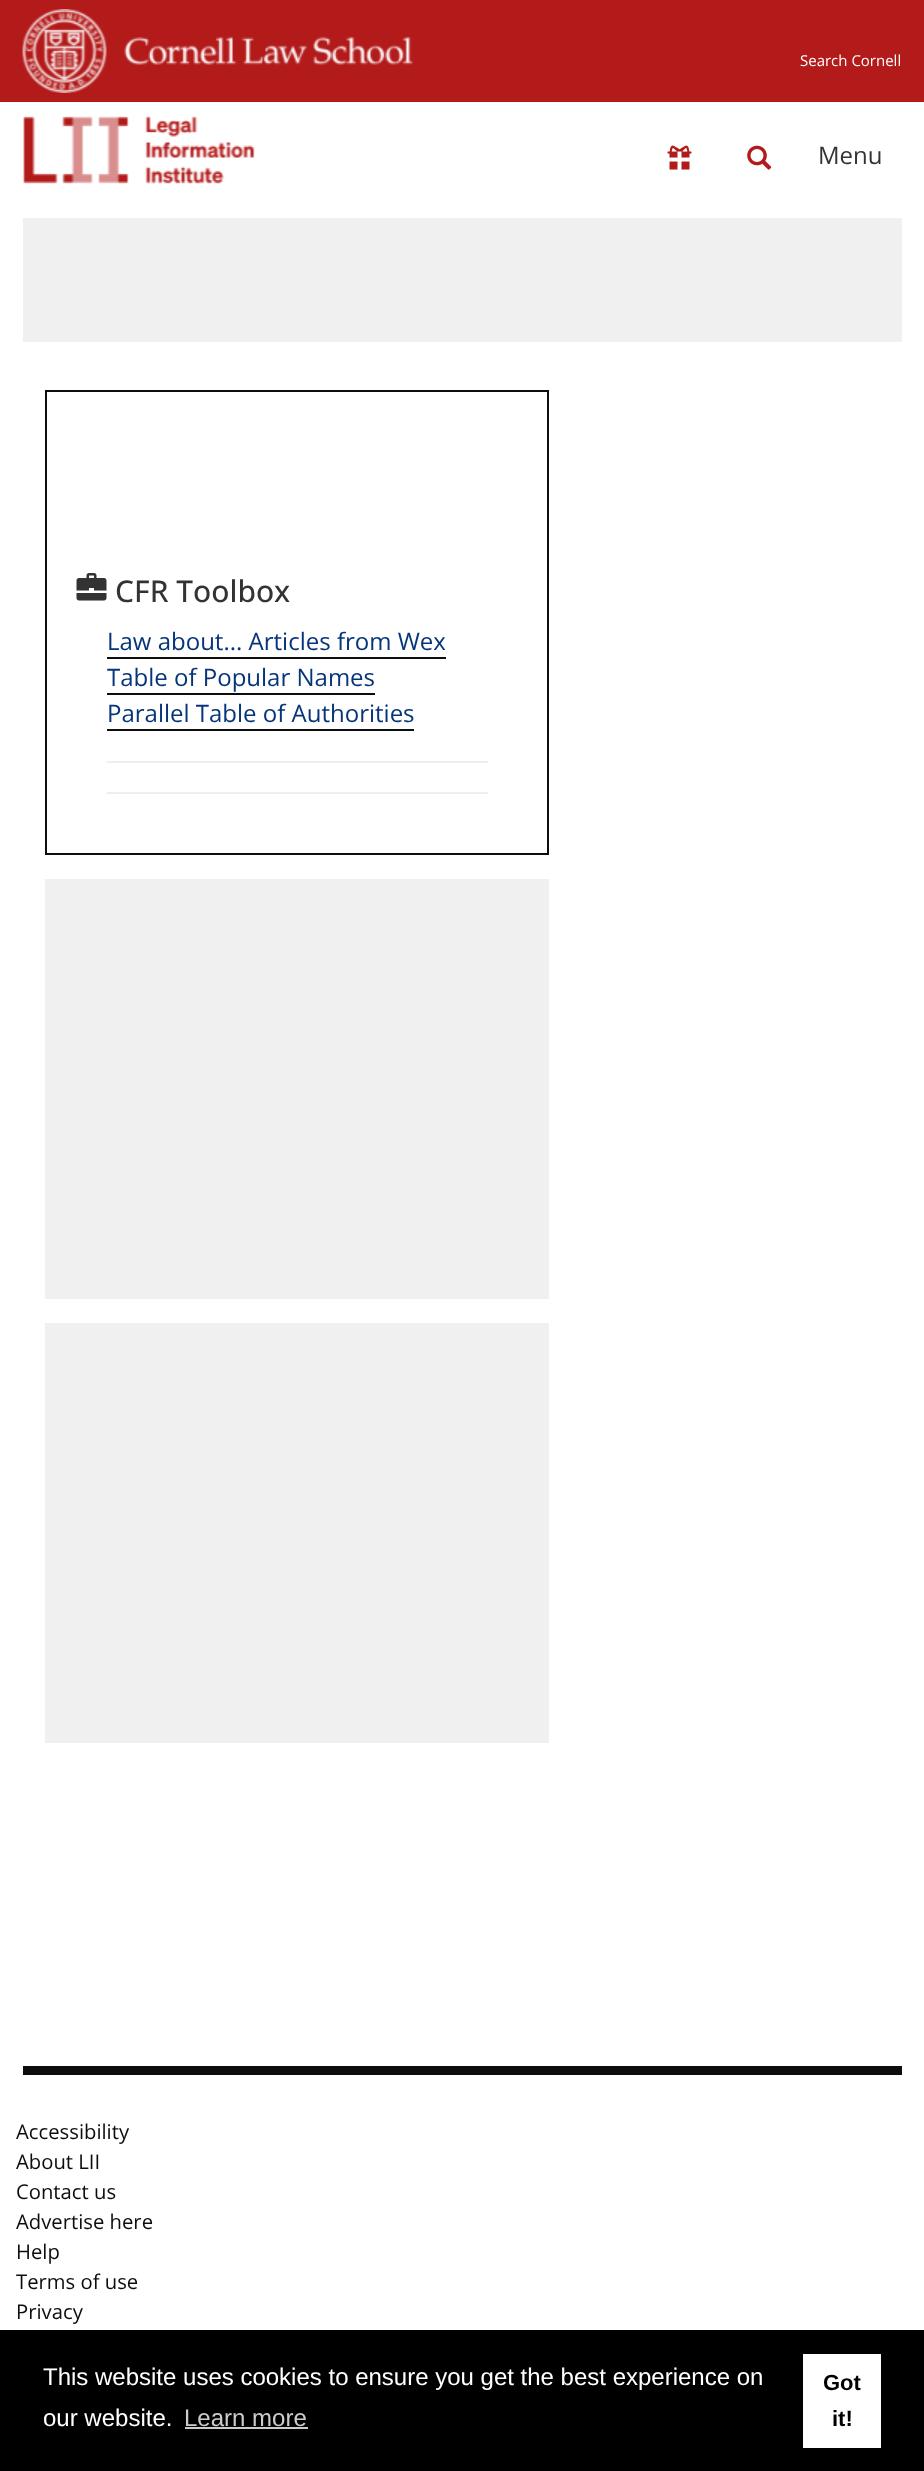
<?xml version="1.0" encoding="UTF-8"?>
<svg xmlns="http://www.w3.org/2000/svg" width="924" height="2471">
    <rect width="100%" height="100%" fill="#FFFFFF"/>
    <rect x="0" y="0" width="924" height="102" fill="#B31B1B"/>
    <image x="22" y="9" width="85" height="84" href="img_01.png"/>
    <image x="124" y="36" width="289" height="29" href="img_02.png"/>
    <text x="800" y="66" font-family="Open Sans" font-size="15" fill="#FFFFFF">Search Cornell</text>
    <image x="23" y="116" width="232" height="68" href="img_03.png"/>
    <image x="667" y="145" width="25" height="25" href="img_04.png"/>
    <image x="747" y="145" width="25" height="25" href="img_05.png"/>
    <text x="818" y="164" font-family="Open Sans" font-size="24" fill="#333333">Menu</text>
    <rect x="23" y="218" width="879" height="124" fill="#F0F0F0"/>
    <rect x="46" y="391" width="502" height="463" fill="none" stroke="#0E0D0E" stroke-width="2"/>
    <image x="76" y="573" width="31" height="28" href="img_06.png"/>
    <text x="115" y="602" font-family="Open Sans" font-size="30" font-weight="500" fill="#333333">CFR Toolbox</text>
    <text x="107" y="650" font-family="Open Sans" font-size="24" fill="#06357A">Law about... Articles from Wex</text>
    <rect x="107" y="657" width="339" height="2" fill="#0E0D0E"/>
    <text x="107" y="686" font-family="Open Sans" font-size="24" fill="#06357A">Table of Popular Names</text>
    <rect x="107" y="693" width="268" height="2" fill="#0E0D0E"/>
    <text x="107" y="722" font-family="Open Sans" font-size="24" fill="#06357A">Parallel Table of Authorities</text>
    <rect x="107" y="729" width="307" height="2" fill="#0E0D0E"/>
    <rect x="107" y="761" width="381" height="2" fill="#EEEEEE"/>
    <rect x="107" y="792" width="381" height="2" fill="#EEEEEE"/>
    <rect x="45" y="879" width="504" height="420" fill="#F0F0F0"/>
    <rect x="45" y="1323" width="504" height="420" fill="#F0F0F0"/>
    <rect x="23" y="2066" width="879" height="9" fill="#0E0D0E"/>
    <text font-family="Open Sans" font-size="20.25" fill="#0E0D0E">
        <tspan x="16" y="2139">Accessibility</tspan>
        <tspan x="16" y="2169">About LII</tspan>
        <tspan x="16" y="2199">Contact us</tspan>
        <tspan x="16" y="2229">Advertise here</tspan>
        <tspan x="16" y="2259">Help</tspan>
        <tspan x="16" y="2289">Terms of use</tspan>
        <tspan x="16" y="2319">Privacy</tspan>
    </text>
    <rect x="0" y="2330" width="924" height="141" fill="#000000"/>
    <text font-family="Liberation Sans" font-size="24" fill="#FFFFFF">
        <tspan x="43" y="2385">This website uses cookies to ensure you get the best experience on</tspan>
        <tspan x="43" y="2426">our website.</tspan>
    </text>
    <text x="184" y="2426" font-family="Liberation Sans" font-size="24" fill="#CCCCCC">Learn more</text>
    <rect x="185" y="2427" width="123" height="2" fill="#CCCCCC"/>
    <rect x="803" y="2354" width="78" height="94" fill="#FFFFFF"/>
    <text x="823" y="2390" font-family="Liberation Sans" font-size="22" font-weight="700" fill="#000000">Got</text>
    <text x="832" y="2426" font-family="Liberation Sans" font-size="22" font-weight="700" fill="#000000">it!</text>
</svg>
